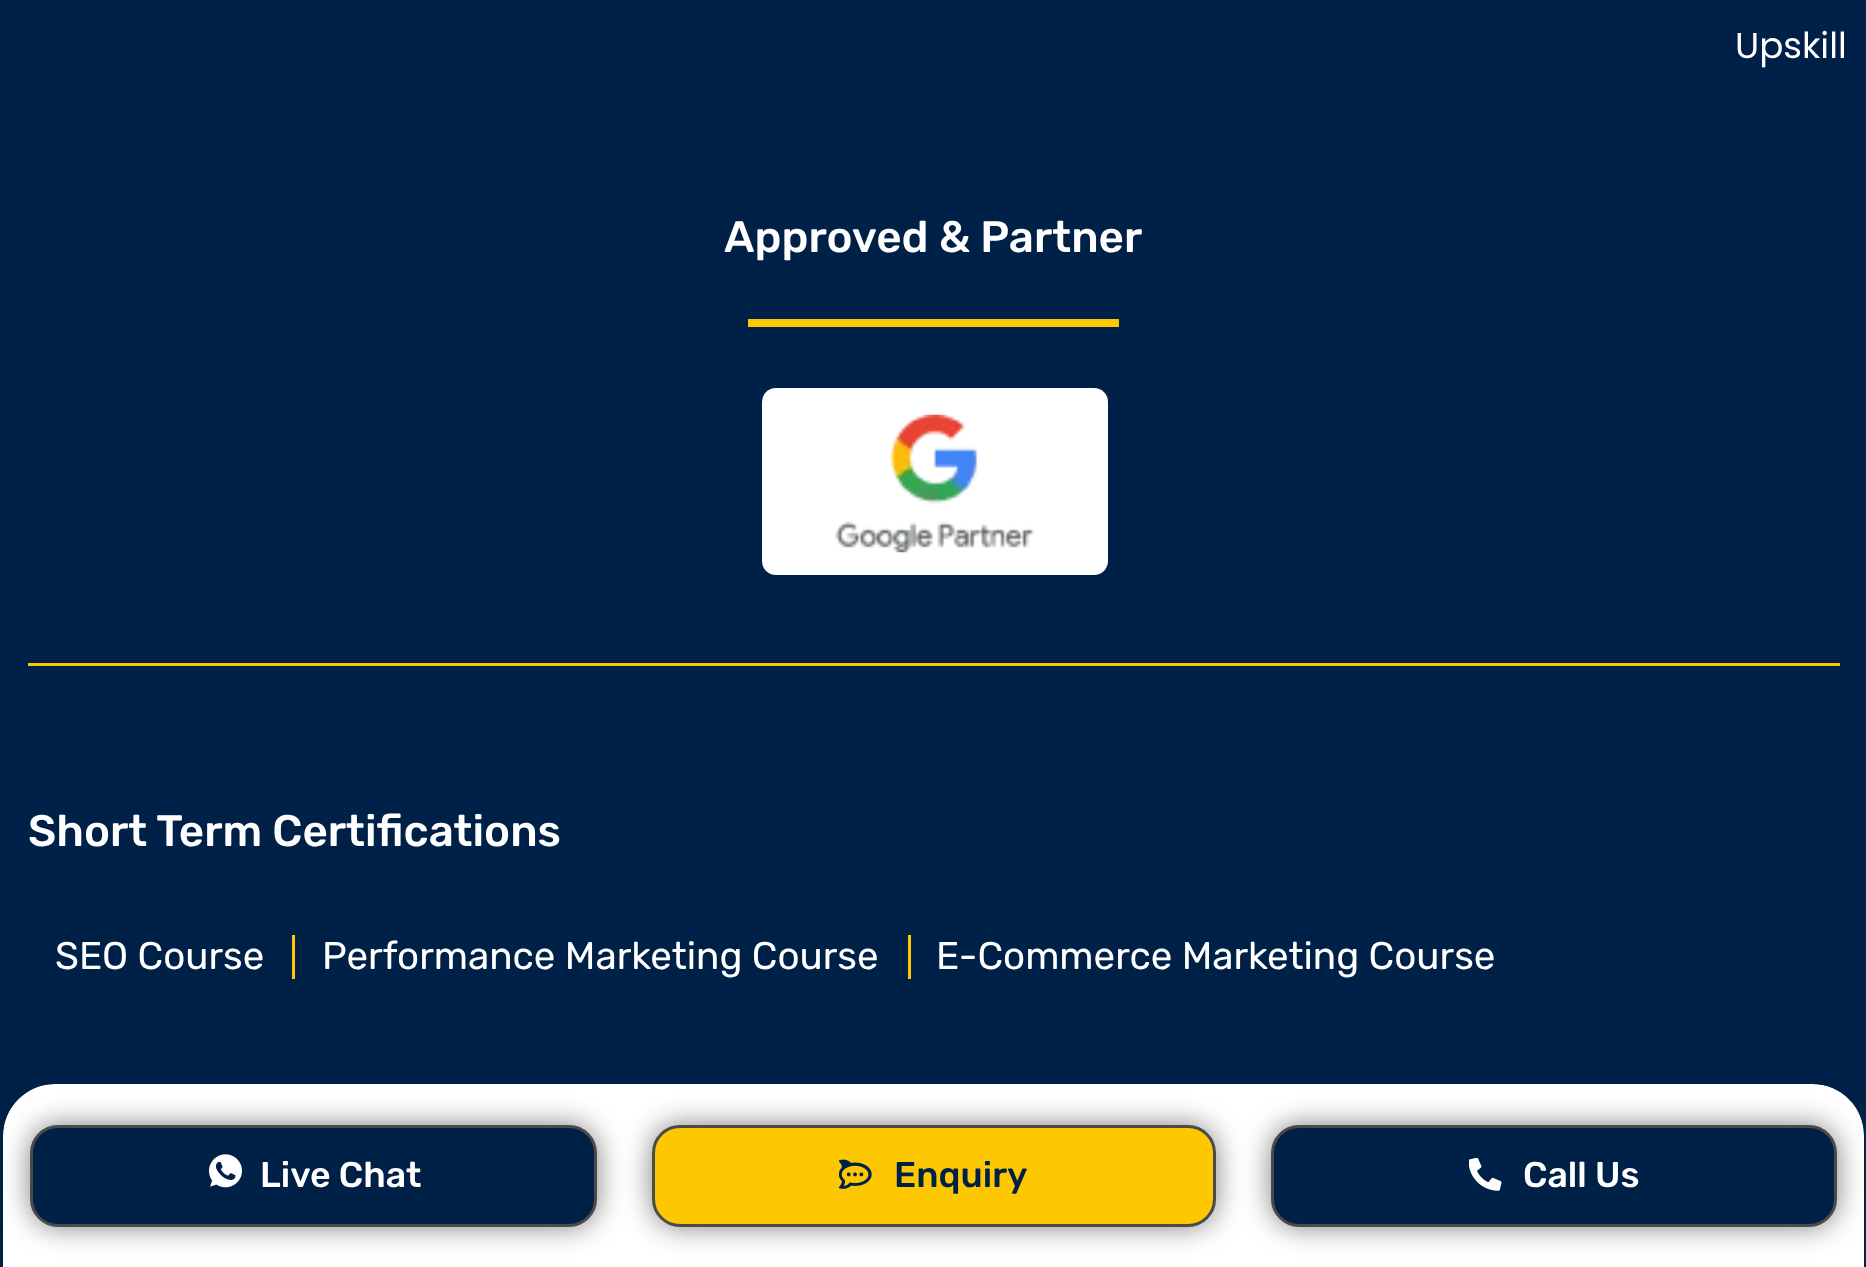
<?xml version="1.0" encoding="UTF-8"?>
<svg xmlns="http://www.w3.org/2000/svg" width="1866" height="1267">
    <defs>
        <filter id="blur1" x="-50%" y="-200%" width="200%" height="500%"><feGaussianBlur stdDeviation="14"/></filter>
    </defs>
    <rect width="100%" height="100%" fill="#002147"/>
    <text x="1735" y="58" font-family="Poppins" font-size="35.75" fill="#FFFFFF">Upskill</text>
    <text x="724" y="252" font-family="Rubik" font-size="44" font-weight="500" fill="#FFFFFF">Approved &amp; Partner</text>
    <rect x="748" y="319" width="371" height="8" fill="#FDC801"/>
    <rect x="762" y="388" width="346" height="187" rx="14" fill="#FFFFFF"/>
    <image x="835" y="414" width="200" height="139" href="img_01.png"/>
    <path d="M 55 1084 H 1813 C 1841.5 1084 1865 1107.5 1865 1136 V 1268 H 3 V 1136 C 3 1107.5 26.5 1084 55 1084 Z" fill="#FFFFFF"/>
    <path d="M 55 1081 H 1812 C 1843 1081 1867 1105 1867 1136 V 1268 H 0 V 1136 C 0 1105 25 1081 55 1081 Z M 55 1084 H 1812 C 1841 1084 1864 1107 1864 1136 V 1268 H 3 V 1136 C 3 1107 26 1084 55 1084 Z" fill="#002147" fill-rule="evenodd"/>
    <rect x="30" y="1125" width="567" height="102" rx="28" fill="#000000" fill-opacity="0.5" filter="url(#blur1)"/>
    <rect x="31.5" y="1126.5" width="564" height="99" rx="26.5" fill="#002147" stroke="#4A4A4A" stroke-width="3"/>
    <image x="209" y="1154" width="33" height="34" href="img_02.png"/>
    <text x="260" y="1187" font-family="Rubik" font-size="35.75" font-weight="500" fill="#FFFFFF">Live Chat</text>
    <rect x="652" y="1125" width="564" height="102" rx="28" fill="#000000" fill-opacity="0.5" filter="url(#blur1)"/>
    <rect x="653.5" y="1126.5" width="561" height="99" rx="26.5" fill="#FDC801" stroke="#4A4A4A" stroke-width="3"/>
    <image x="839" y="1159" width="33" height="30" href="img_03.png"/>
    <text x="894" y="1187" font-family="Rubik" font-size="35.75" font-weight="500" fill="#002147">Enquiry</text>
    <rect x="1271" y="1125" width="566" height="102" rx="28" fill="#000000" fill-opacity="0.5" filter="url(#blur1)"/>
    <rect x="1272.5" y="1126.5" width="563" height="99" rx="26.5" fill="#002147" stroke="#4A4A4A" stroke-width="3"/>
    <image x="1469" y="1158" width="33" height="33" href="img_04.png"/>
    <text x="1523" y="1187" font-family="Rubik" font-size="35.75" font-weight="500" fill="#FFFFFF">Call Us</text>
    <rect x="28" y="663" width="1812" height="3" fill="#FDC801"/>
    <text x="28" y="846" font-family="Rubik" font-size="44" font-weight="500" fill="#FFFFFF">Short Term Certifications</text>
    <text x="55" y="969" font-family="Rubik" font-size="38.5" fill="#FFFFFF">SEO Course</text>
    <rect x="292" y="935" width="3" height="44" fill="#FDC801"/>
    <text x="322" y="969" font-family="Rubik" font-size="38.5" fill="#FFFFFF">Performance Marketing Course</text>
    <rect x="908" y="935" width="3" height="44" fill="#FDC801"/>
    <text x="936" y="969" font-family="Rubik" font-size="38.5" fill="#FFFFFF">E-Commerce Marketing Course</text>
</svg>
